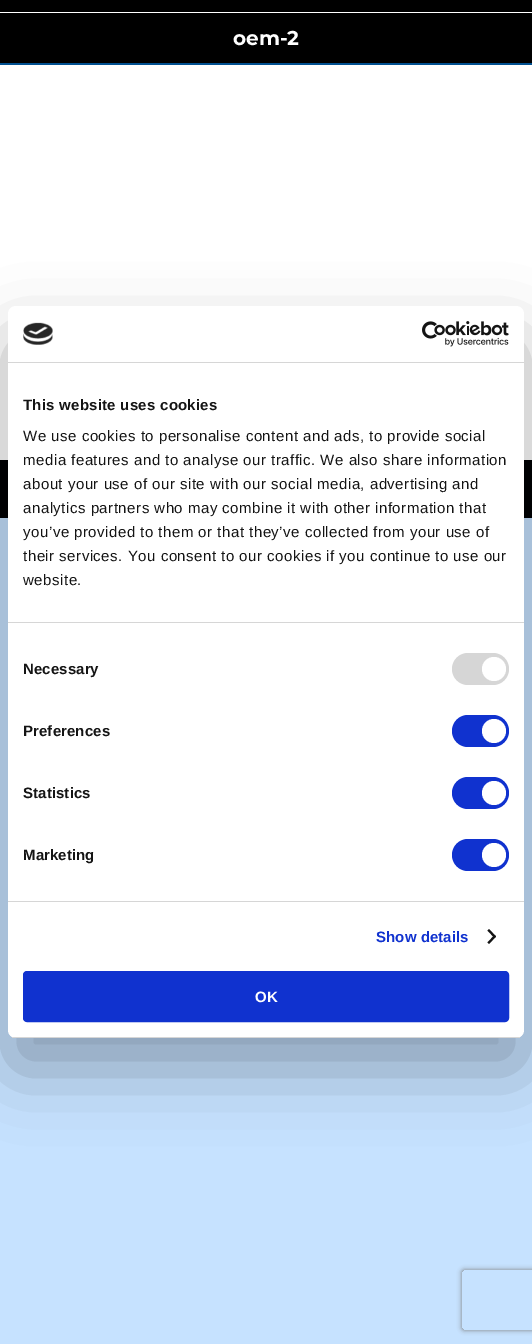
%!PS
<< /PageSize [532 1344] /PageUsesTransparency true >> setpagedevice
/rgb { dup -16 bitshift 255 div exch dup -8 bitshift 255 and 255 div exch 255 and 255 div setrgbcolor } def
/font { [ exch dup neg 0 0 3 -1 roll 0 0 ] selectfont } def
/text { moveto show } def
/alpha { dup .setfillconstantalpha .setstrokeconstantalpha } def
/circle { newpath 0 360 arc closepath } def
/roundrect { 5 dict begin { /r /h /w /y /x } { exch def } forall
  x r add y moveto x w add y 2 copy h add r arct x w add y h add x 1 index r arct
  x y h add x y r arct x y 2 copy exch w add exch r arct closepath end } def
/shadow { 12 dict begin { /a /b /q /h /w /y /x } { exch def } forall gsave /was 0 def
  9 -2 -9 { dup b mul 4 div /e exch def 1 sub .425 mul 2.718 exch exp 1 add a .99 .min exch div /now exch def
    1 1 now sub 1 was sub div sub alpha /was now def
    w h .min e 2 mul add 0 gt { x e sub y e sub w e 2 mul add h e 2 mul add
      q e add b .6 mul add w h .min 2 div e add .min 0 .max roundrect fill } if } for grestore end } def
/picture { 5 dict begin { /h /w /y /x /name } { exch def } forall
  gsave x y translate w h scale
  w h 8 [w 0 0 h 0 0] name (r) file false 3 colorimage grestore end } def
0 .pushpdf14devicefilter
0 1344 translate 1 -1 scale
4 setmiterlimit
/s1 { /Montserrat-Bold 20 font 16#FFFFFF rgb } def
/s2 { /LiberationSans-Bold 15 font 16#FFFFFF rgb } def
16#C6E2FF rgb
0 0 532 1344 rectfill
16#FFFFFF rgb
0 65 532 395 rectfill
0 12 532 1 rectfill
16#000000 rgb
0 0 532 12 rectfill
0 13 532 50 rectfill
16#015090 rgb
0 63 532 2 rectfill
s1
(oem-2) 233 45 text
16#000103 rgb
0 460 532 58 rectfill
16#000000 rgb
8 338 516 732 8 34 0.3 shadow
16#FFFFFF rgb
8 306 516 732 8 roundrect fill
16#D6D6D6 rgb
8 362 516 1 rectfill
(pic1.raw) 23 322 30 23 picture
(pic2.raw) 422 321 87 26 picture
8 622 516 1 rectfill
/LiberationSans-Bold 15 font
16#141414 rgb
23 410 moveto 0.25 0 (This website uses cookies) ashow
/LiberationSans-Regular 15 font
23 441 moveto 0.5 0 (We use cookies to personalise content and ads, to provide social) ashow
23 465 moveto 0.5 0 (media features and to analyse our traffic. We also share information) ashow
23 489 moveto 0.5 0 (about your use of our site with our social media, advertising and) ashow
23 513 moveto 0.5 0 (analytics partners who may combine it with other information that) ashow
23 537 moveto 0.5 0 (you’ve provided to them or that they’ve collected from your use of) ashow
23 561 moveto 0.5 0 (their services. You consent to our cookies if you continue to use our) ashow
23 585 moveto 0.5 0 (website.) ashow
16#D6D6D6 rgb
8 901 516 1 rectfill
/LiberationSans-Bold 15 font
16#141414 rgb
23 674 moveto 0.1 0 (Necessary) ashow
16#D6D6D6 rgb
452 653 57 32 16 roundrect fill
16#FFFFFF rgb
494 669 12 circle fill
16#141414 rgb
23 736 moveto 0.1 0 (Preferences) ashow
16#1032CF rgb
452 715 57 32 16 roundrect fill
16#FFFFFF rgb
494 731 12 circle fill
16#141414 rgb
23 798 moveto 0.1 0 (Statistics) ashow
16#1032CF rgb
452 777 57 32 16 roundrect fill
16#FFFFFF rgb
494 793 12 circle fill
16#141414 rgb
23 860 moveto 0.1 0 (Marketing) ashow
16#1032CF rgb
452 839 57 32 16 roundrect fill
16#FFFFFF rgb
494 855 12 circle fill
16#1032CF rgb
376 942 moveto 0.1 0 (Show details) ashow
16#141414 rgb
489 929 moveto 496 936.5 lineto 494.5 938 lineto 487.5 930.5 lineto closepath fill
494.5 935 moveto 496 936.5 lineto 489 944 lineto 487.5 942.5 lineto closepath fill
gsave
8 306 516 732 8 roundrect clip newpath
16#D6D6D6 rgb
8 1037 516 1 rectfill
grestore
16#1032CF rgb
24 972 484 49 3 roundrect gsave fill grestore
2 setlinewidth
stroke
s2
(OK) 255 1002 text
gsave
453 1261 moveto 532 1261 lineto 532 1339 lineto 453 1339 lineto closepath 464 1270 moveto 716 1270 lineto 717 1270 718 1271 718 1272 curveto 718 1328 lineto 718 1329 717 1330 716 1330 curveto 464 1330 lineto 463 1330 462 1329 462 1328 curveto 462 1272 lineto 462 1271 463 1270 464 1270 curveto closepath eoclip newpath
16#808080 rgb
462 1270 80 60 2 2.5 1 shadow
grestore
.poppdf14devicefilter showpage
